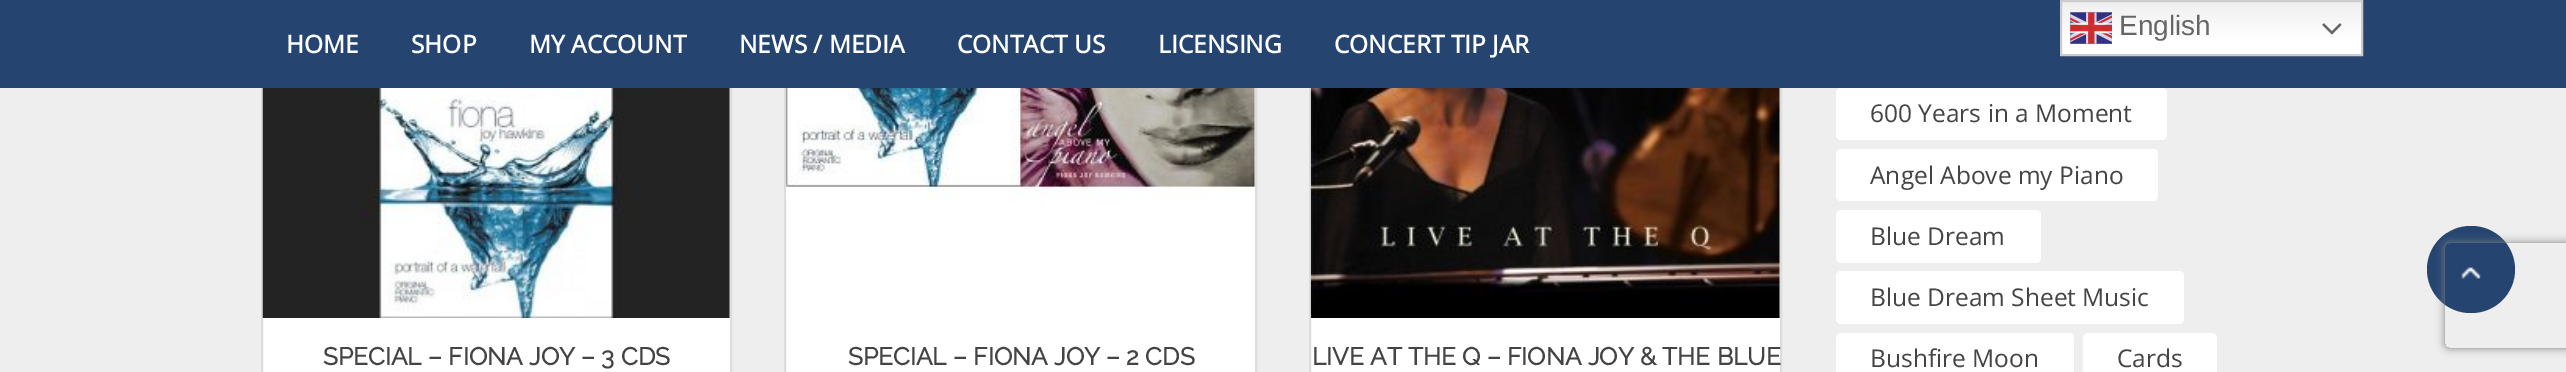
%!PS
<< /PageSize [2566 372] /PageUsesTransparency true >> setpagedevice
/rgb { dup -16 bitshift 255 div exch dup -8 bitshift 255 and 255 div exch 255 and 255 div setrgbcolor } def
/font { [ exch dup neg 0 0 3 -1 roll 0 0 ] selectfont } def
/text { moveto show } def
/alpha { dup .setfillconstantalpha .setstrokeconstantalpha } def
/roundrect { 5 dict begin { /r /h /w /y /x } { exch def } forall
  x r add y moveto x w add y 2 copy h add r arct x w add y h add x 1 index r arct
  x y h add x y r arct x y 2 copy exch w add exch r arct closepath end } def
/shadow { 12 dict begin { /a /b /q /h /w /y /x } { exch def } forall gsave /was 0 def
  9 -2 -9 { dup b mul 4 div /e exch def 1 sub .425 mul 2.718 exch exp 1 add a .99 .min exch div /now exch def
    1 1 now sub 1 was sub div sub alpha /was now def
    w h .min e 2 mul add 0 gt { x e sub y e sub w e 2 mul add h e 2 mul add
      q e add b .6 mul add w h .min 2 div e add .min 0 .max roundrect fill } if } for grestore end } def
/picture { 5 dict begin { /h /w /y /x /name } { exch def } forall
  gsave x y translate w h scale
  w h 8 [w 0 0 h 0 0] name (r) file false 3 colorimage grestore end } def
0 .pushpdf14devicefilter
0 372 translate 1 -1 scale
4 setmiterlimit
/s1 { /LiberationSans-Regular 28 font 16#666666 rgb } def
/s2 { /OpenSans-Bold 24.5 font 16#FFFFFF rgb } def
/s3 { /Raleway-Bold 24.5 font 16#444444 rgb } def
/s4 { /OpenSans-Regular 24.5 font 16#444444 rgb } def
16#EEEEEE rgb
0 0 2566 372 rectfill
16#FFFFFF rgb
263 88 467 284 rectfill
16#DDDDDD rgb
2 setlinewidth
262 -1 469 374 rectstroke
16#FFFFFF rgb
786 88 469 284 rectfill
16#DDDDDD rgb
785 -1 471 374 rectstroke
16#FFFFFF rgb
1311 88 469 284 rectfill
16#DDDDDD rgb
1310 -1 471 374 rectstroke
16#254470 rgb
0 0 2566 88 rectfill
gsave 2062 2 moveto 2361 2 lineto 2361 54 lineto 2062 54 lineto closepath clip newpath
<< /ShadingType 2 /ColorSpace /DeviceRGB /Coords [2211 0 2211 56] /Extend [true true] /Function << /FunctionType 3 /Domain [0 1] /Functions [<< /FunctionType 2 /Domain [0 1] /C0 [0.937 0.937 0.937] /C1 [1 1 1] /N 1 >> << /FunctionType 2 /Domain [0 1] /C0 [1 1 1] /C1 [1 1 1] /N 1 >>] /Bounds [0.7] /Encode [0 1 0 1] >> >> shfill grestore
16#CCCCCC rgb
2061 1 301 54 rectstroke
(pic1.raw) 2070 12 42 32 picture
s1
(English) 2119 35 text
(pic2.raw) 2322 23 20 12 picture
s2
(HOME) 286 53 text
(SHOP) 411 53 text
(MY ACCOUNT) 529 53 text
(NEWS / MEDIA) 739 53 text
(CONTACT US) 957 53 text
(LICENSING) 1158 53 text
(CONCERT TIP JAR) 1334 53 text
(pic3.raw) 262 88 468 230 picture
s3
(SPECIAL – FIONA JOY – 3 CDS) 323 365 text
(pic4.raw) 785 88 470 112 picture
(SPECIAL – FIONA JOY – 2 CDS) 848 365 text
(pic5.raw) 1310 88 470 230 picture
(LIVE AT THE Q – FIONA JOY & THE BLUE) 1312 365 text
16#FFFFFF rgb
1836 88 331 52 5 roundrect fill
s4
(600 Years in a Moment) 1870 122 text
16#FFFFFF rgb
1836 149 322 52 5 roundrect fill
s4
(Angel Above my Piano) 1870 184 text
16#FFFFFF rgb
1836 210 205 53 5 roundrect fill
s4
(Blue Dream) 1870 245 text
16#FFFFFF rgb
1836 271 348 53 5 roundrect fill
s4
(Blue Dream Sheet Music) 1870 306 text
16#FFFFFF rgb
1836 333 238 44 5 roundrect fill
s4
(Bushfire Moon) 1870 367 text
16#FFFFFF rgb
2083 333 134 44 5 roundrect fill
s4
(Cards) 2117 367 text
16#254470 rgb
2427 226 88 87 43.5 roundrect fill
(pic6.raw) 2447 229 34 50 picture
gsave
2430 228 moveto 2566 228 lineto 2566 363 lineto 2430 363 lineto closepath 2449 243 moveto 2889 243 lineto 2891 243 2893 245 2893 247 curveto 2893 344 lineto 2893 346 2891 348 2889 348 curveto 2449 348 lineto 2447 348 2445 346 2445 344 curveto 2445 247 lineto 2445 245 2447 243 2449 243 curveto closepath eoclip newpath
16#808080 rgb
2445 243 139 105 4 4.5 1 shadow
grestore
.poppdf14devicefilter showpage
